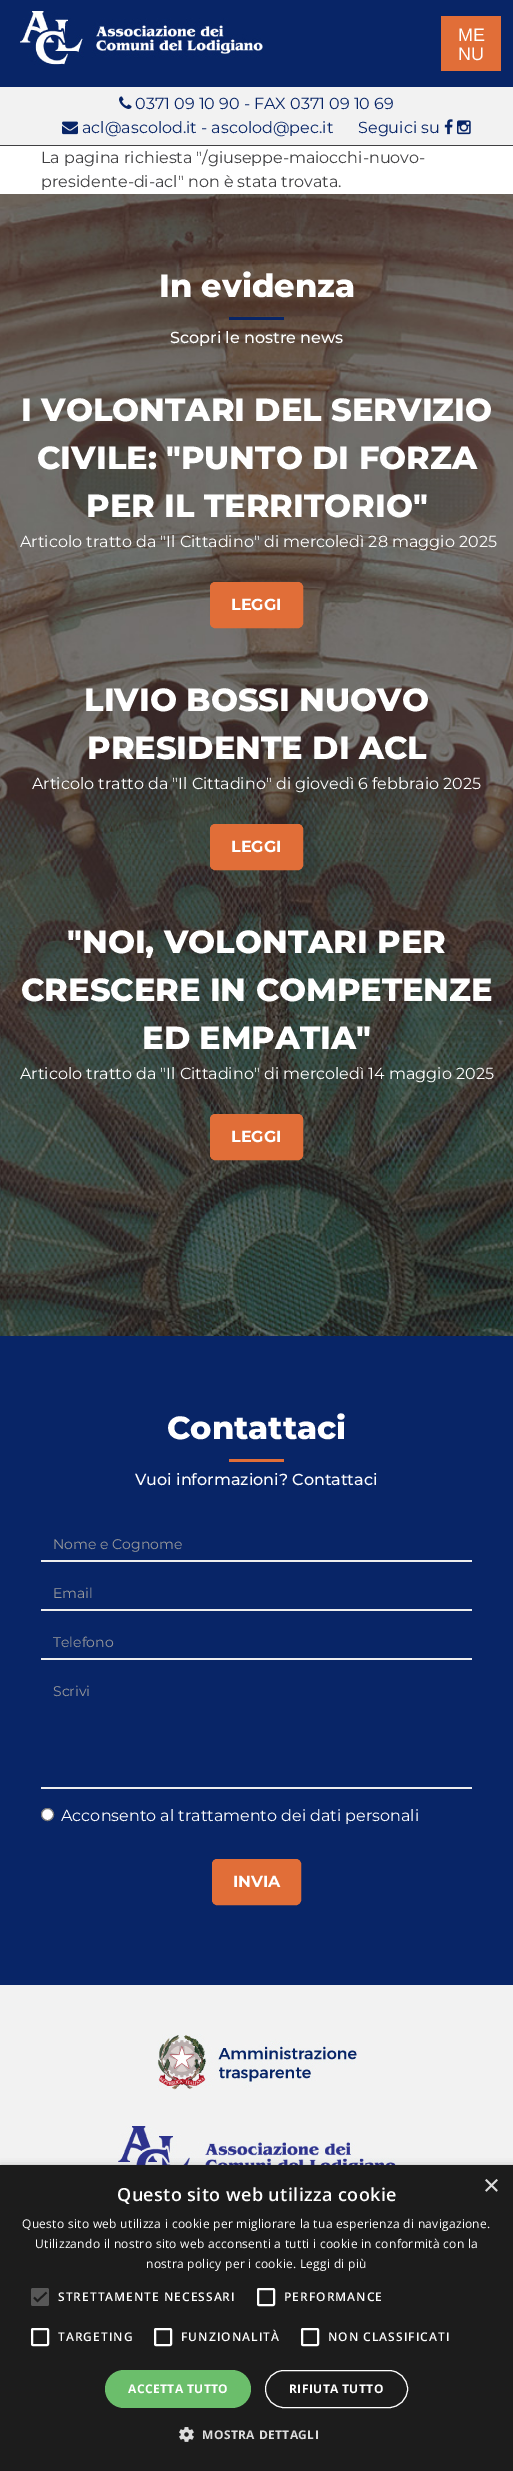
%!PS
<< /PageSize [513 2471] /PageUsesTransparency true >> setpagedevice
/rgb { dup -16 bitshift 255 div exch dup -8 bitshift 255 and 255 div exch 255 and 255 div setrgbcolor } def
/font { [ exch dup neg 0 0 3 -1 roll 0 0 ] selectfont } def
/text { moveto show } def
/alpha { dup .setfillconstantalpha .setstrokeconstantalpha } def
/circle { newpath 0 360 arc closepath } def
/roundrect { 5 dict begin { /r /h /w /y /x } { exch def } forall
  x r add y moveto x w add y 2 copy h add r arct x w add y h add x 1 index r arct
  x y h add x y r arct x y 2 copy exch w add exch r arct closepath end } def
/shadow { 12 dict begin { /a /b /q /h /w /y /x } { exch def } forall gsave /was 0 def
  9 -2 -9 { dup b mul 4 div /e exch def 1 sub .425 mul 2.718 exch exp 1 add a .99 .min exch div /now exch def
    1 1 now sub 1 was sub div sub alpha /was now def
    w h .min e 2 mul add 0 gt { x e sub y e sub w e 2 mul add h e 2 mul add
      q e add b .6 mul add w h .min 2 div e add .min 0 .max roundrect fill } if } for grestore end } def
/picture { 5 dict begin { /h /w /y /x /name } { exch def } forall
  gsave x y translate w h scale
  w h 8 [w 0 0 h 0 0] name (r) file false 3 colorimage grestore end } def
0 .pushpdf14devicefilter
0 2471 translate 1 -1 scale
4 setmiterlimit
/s1 { /LiberationSans-Regular 18 font 16#FFFFFF rgb } def
/s2 { /Montserrat-Regular 16 font 16#082567 rgb } def
/s3 { /Montserrat-Regular 16 font 16#404042 rgb } def
/s4 { /Montserrat-ExtraBold 32 font 16#FFFFFF rgb } def
/s5 { /Montserrat-Medium 16 font 16#FFFFFF rgb } def
/s6 { /Montserrat-Regular 16 font 16#FFFFFF rgb } def
/s7 { /Montserrat-Bold 16 font 16#FFFFFF rgb } def
/s8 { /Montserrat-Regular 14 font 16#999999 rgb } def
/s9 { /LiberationSans-Regular 29 font 16#DDDDDD rgb } def
16#FFFFFF rgb
0 0 513 2471 rectfill
16#082567 rgb
0 0 513 87 rectfill
16#E16E38 rgb
441 16 60 55 rectfill
s1
(ME) 458 41 text
(NU) 458 60 text
16#F2F2F2 rgb
0 87 513 58 rectfill
(pic1.raw) 20 11 243 54 picture
16#404042 rgb
0 145 513 1 rectfill
(pic2.raw) 119 96 13 13 picture
s2
(0371 09 10 90 - FAX 0371 09 10 69) 135 109 text
(pic3.raw) 62 121 16 14 picture
(acl@ascolod.it - ascolod@pec.it) 82 133 text
(Seguici su) 358 133 text
(pic4.raw) 444 119 9 16 picture
(pic5.raw) 457 120 14 15 picture
s3
(La pagina richiesta "/giuseppe-maiocchi-nuovo-) 41 163 text
(presidente-di-acl" non è stata trovata.) 41 187 text
(pic6.raw) 0 194 513 1142 picture
s4
(In evidenza) 159 297 text
16#082567 rgb
229 317 55 3 rectfill
s5
(Scopri le nostre news) 170 343 text
s4
(I VOLONTARI DEL SERVIZIO) 21 421 text
(CIVILE: "PUNTO DI FORZA) 37 469 text
(PER IL TERRITORIO") 86 517 text
s6
(Articolo tratto da "Il Cittadino" di mercoledì 28 maggio 2025) 20 547 text
16#E16E38 rgb
210.5 582.5 92 45 4.5 roundrect gsave fill grestore
stroke
s7
(LEGGI) 231 610 text
s4
(LIVIO BOSSI NUOVO) 84 711 text
(PRESIDENTE DI ACL) 87 759 text
s6
(Articolo tratto da "Il Cittadino" di giovedì 6 febbraio 2025) 32 789 text
16#E16E38 rgb
210.5 824.5 92 45 4.5 roundrect gsave fill grestore
stroke
s7
(LEGGI) 231 852 text
s4
("NOI, VOLONTARI PER) 67 953 text
(CRESCERE IN COMPETENZE) 21 1001 text
(ED EMPATIA") 142 1049 text
s6
(Articolo tratto da "Il Cittadino" di mercoledì 14 maggio 2025) 20 1079 text
16#E16E38 rgb
210.5 1114.5 92 45 4.5 roundrect gsave fill grestore
stroke
s7
(LEGGI) 231 1142 text
16#082567 rgb
0 1336 513 649 rectfill
s4
(Contattaci) 167 1439 text
16#E16E38 rgb
229 1459 55 3 rectfill
s5
(Vuoi informazioni? Contattaci) 135 1485 text
16#EEEEEE rgb
41 1560 431 2 rectfill
s8
(Nome e Cognome) 53 1549 text
16#EEEEEE rgb
41 1609 431 2 rectfill
s8
(Email) 53 1598 text
16#EEEEEE rgb
41 1658 431 2 rectfill
s8
(Telefono) 53 1647 text
16#EEEEEE rgb
41 1787 431 2 rectfill
s8
(Scrivi) 53 1696 text
16#FFFFFF rgb
47.5 1814.5 6 circle gsave fill grestore
16#767676 rgb
stroke
s6
(Acconsento al trattamento dei dati personali) 61 1821 text
16#E16E38 rgb
212.5 1859.5 88 45 4.5 roundrect gsave fill grestore
stroke
s7
(INVIA) 233 1887 text
16#F2F2F2 rgb
0 1985 513 180 rectfill
(pic7.raw) 157 2034 200 56 picture
(pic8.raw) 118 2126 278 39 picture
16#000000 rgb
1 2167 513 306 0 4 0.35 shadow
16#1C1C1C rgb
0 2165 513 306 rectfill
s9
(×) 483 2195 text
/OpenSans-SemiBold 18 font
16#FFFFFF rgb
117 2201 moveto 0.4 0 (Questo sito web utilizza cookie) ashow
/OpenSans-Regular 12 font
22 2228 moveto 0.3 0 (Questo sito web utilizza i cookie per migliorare la tua esperienza di navigazione.) ashow
35 2248 moveto 0.3 0 (Utilizzando il nostro sito web acconsenti a tutti i cookie in conformità con la) ashow
146 2268 moveto 0.3 0 (nostra policy per i cookie. Leggi di più) ashow
16#575757 rgb
31 2288 18 18 2 roundrect fill
16#1C1C1C rgb
1.8 setlinewidth
34 2297.5 moveto 37.5 2301 lineto 46.5 2292.5 lineto stroke
/OpenSans-SemiBold 12 font
16#FFFFFF rgb
58 2301 moveto 1 0 (STRETTAMENTE NECESSARI) ashow
2 setlinewidth
258 2289 16 16 1 roundrect stroke
284 2301 moveto 1 0 (PERFORMANCE) ashow
32 2329 16 16 1 roundrect stroke
58 2341 moveto 1 0 (TARGETING) ashow
155 2329 16 16 1 roundrect stroke
181 2341 moveto 1 0 (FUNZIONALITÀ) ashow
302 2329 16 16 1 roundrect stroke
328 2341 moveto 1 0 (NON CLASSIFICATI) ashow
16#6BBE6B rgb
105 2370 146 38 19 roundrect fill
/OpenSans-Bold 12 font
16#FFFFFF rgb
128 2393 moveto 0.4 0 (ACCETTA TUTTO) ashow
1 setlinewidth
265.5 2370.5 142 37 18.5 roundrect stroke
289 2393 moveto 0.4 0 (RIFIUTA TUTTO) ashow
(pic9.raw) 179 2427 15 15 picture
16#DDDDDD rgb
202 2439 moveto 0.4 0 (MOSTRA DETTAGLI) ashow
.poppdf14devicefilter showpage
